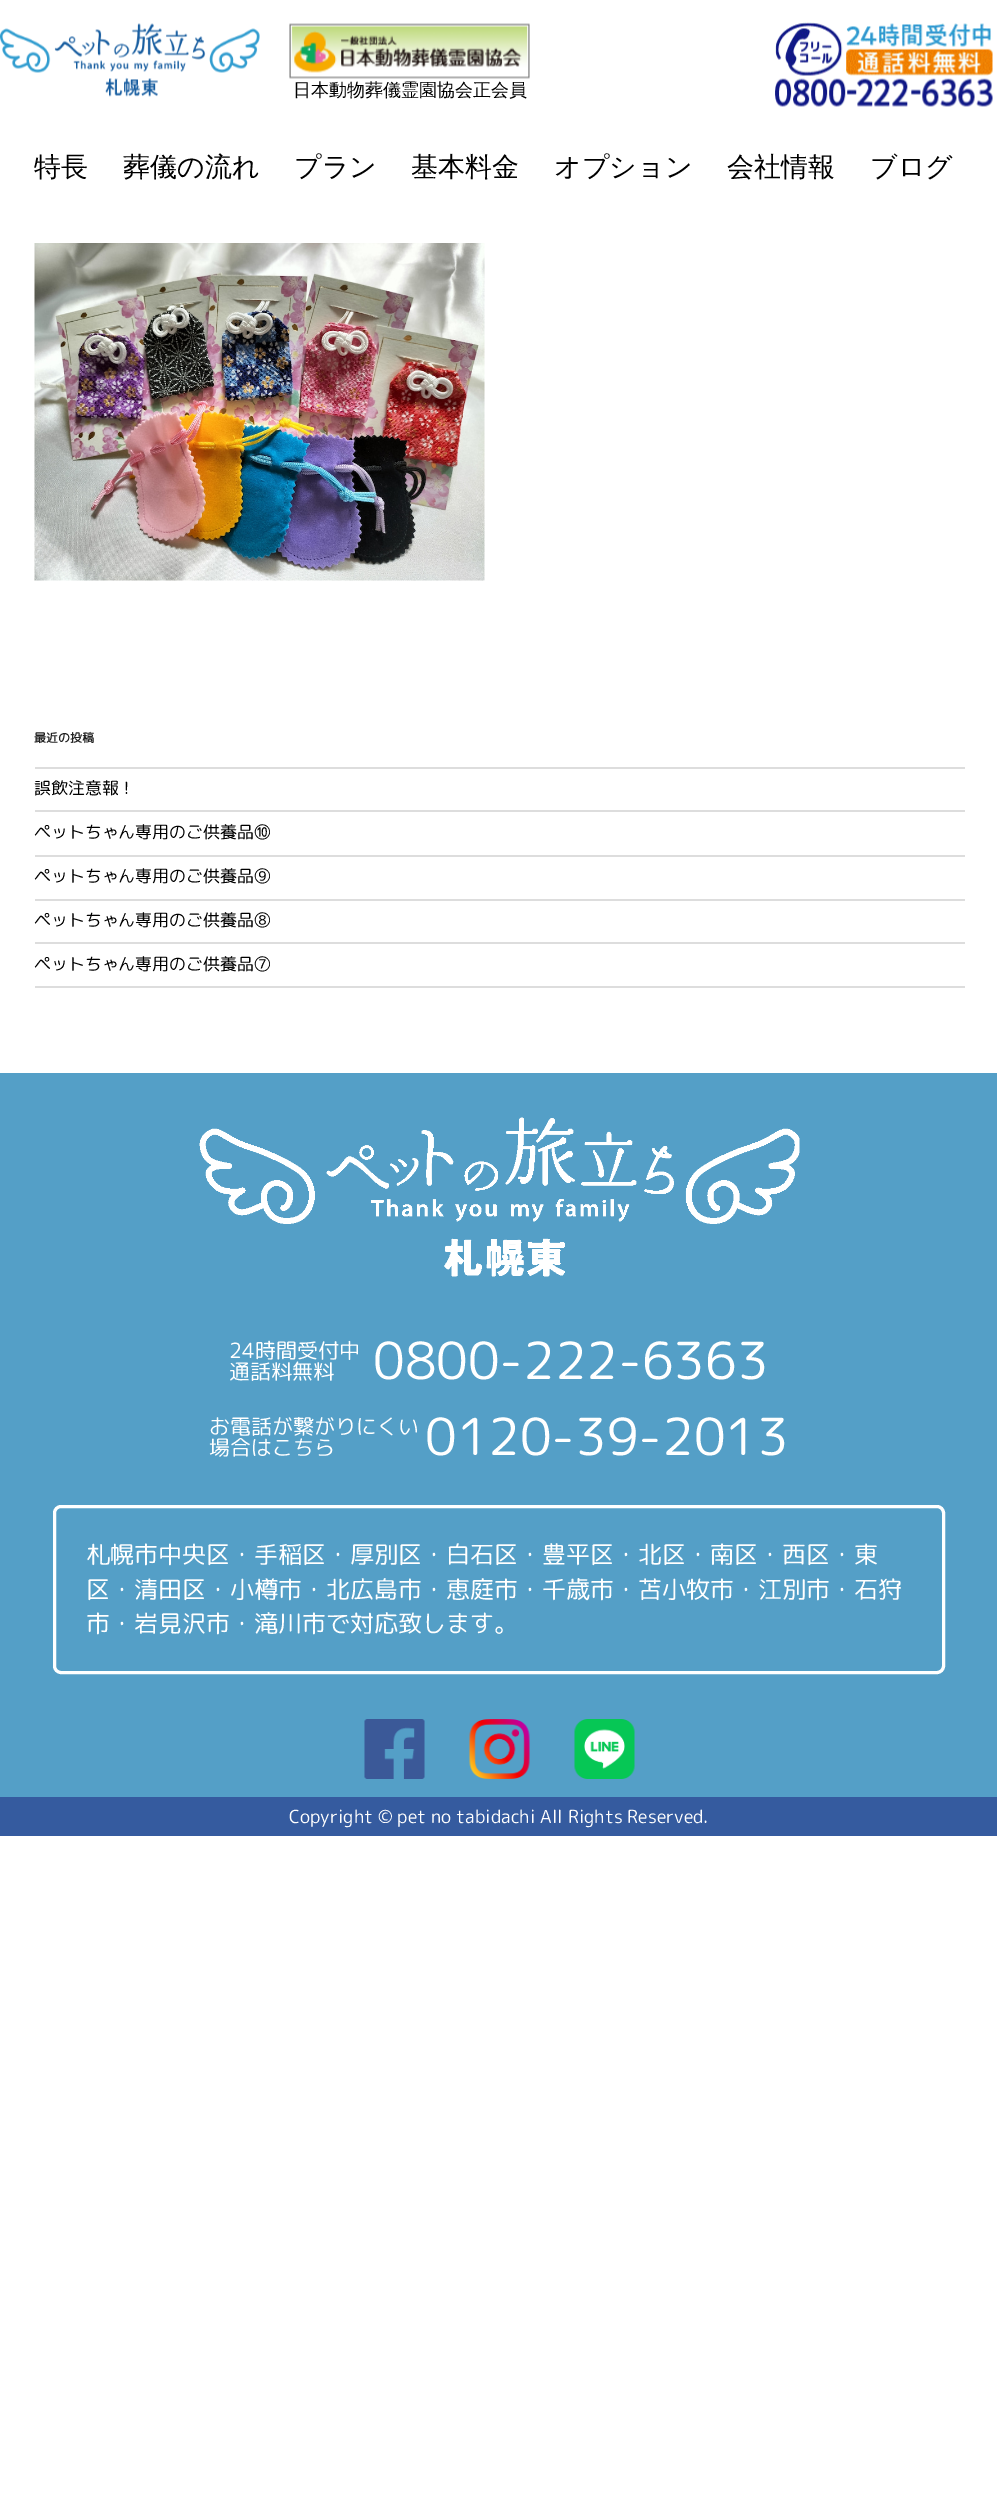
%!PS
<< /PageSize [997 2519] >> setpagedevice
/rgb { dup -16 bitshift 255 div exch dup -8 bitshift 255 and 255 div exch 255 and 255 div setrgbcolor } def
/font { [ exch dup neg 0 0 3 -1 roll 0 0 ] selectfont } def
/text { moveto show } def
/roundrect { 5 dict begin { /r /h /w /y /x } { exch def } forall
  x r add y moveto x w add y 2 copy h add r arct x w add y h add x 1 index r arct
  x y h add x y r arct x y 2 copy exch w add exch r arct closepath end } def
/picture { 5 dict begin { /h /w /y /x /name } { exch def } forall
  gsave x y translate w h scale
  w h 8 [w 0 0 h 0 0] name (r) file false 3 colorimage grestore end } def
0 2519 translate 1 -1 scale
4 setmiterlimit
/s1 { /WenQuanYiZenHei-Medium 18 font 16#000000 rgb } def
/s2 { /WenQuanYiZenHei-Medium 27 font 16#000000 rgb } def
/s3 { /RoundedMplus1c-Bold 12 font 16#222222 rgb } def
/s4 { /RoundedMplus1c-Regular 16.9 font 16#000000 rgb } def
/s5 { /RoundedMplus1c-Regular 21 font 16#FFFFFF rgb } def
/s6 { /RoundedMplus1c-Regular 51 font 16#FFFFFF rgb } def
/s7 { /RoundedMplus1c-Regular 24 font 16#FFFFFF rgb } def
/s8 { /RoundedMplus1c-Regular 18 font 16#FFFFFF rgb } def
16#FFFFFF rgb
0 0 997 2519 rectfill
(pic1.raw) 0 23 260 74 picture
(pic2.raw) 289 23 241 56 picture
s1
(日本動物葬儀霊園協会正会員) 293 96 text
(pic3.raw) 775 22 218 85 picture
s2
(特長) 34 176 text
(葬儀の流れ) 123 176 text
(プラン) 294 176 text
(基本料金) 411 176 text
(オプション) 554 176 text
(会社情報) 727 176 text
(ブログ) 870 176 text
(pic4.raw) 34 243 451 338 picture
s3
(最近の投稿) 34 742 text
16#DDDDDD rgb
35 767 930 2 rectfill
35 810 930 2 rectfill
s4
(誤飲注意報！) 34 794 text
16#DDDDDD rgb
35 855 930 2 rectfill
s4
(ペットちゃん専用のご供養品⑩) 34 838 text
16#DDDDDD rgb
35 899 930 2 rectfill
s4
(ペットちゃん専用のご供養品⑨) 34 882 text
16#DDDDDD rgb
35 942 930 2 rectfill
s4
(ペットちゃん専用のご供養品⑧) 34 926 text
16#DDDDDD rgb
35 986 930 2 rectfill
s4
(ペットちゃん専用のご供養品⑦) 34 970 text
16#549FC7 rgb
0 1073 997 724 rectfill
(pic5.raw) 199 1117 601 160 picture
s5
(24時間受付中) 229 1358 text
(通話料無料) 229 1379 text
s6
(0800-222-6363) 373 1379 text
s5
(お電話が繋がりにくい) 209 1434 text
(場合はこちら) 209 1455 text
s6
(0120-39-2013) 425 1455 text
3 setlinewidth
54.5 1506.5 889 166 6.5 roundrect stroke
s7
(札幌市中央区・手稲区・厚別区・白石区・豊平区・北区・南区・西区・東) 86 1563 text
(区・清田区・小樽市・北広島市・恵庭市・千歳市・苫小牧市・江別市・石狩) 86 1598 text
(市・岩見沢市・滝川市で対応致します。) 86 1632 text
(pic6.raw) 364 1719 61 60 picture
(pic7.raw) 469 1719 61 60 picture
(pic8.raw) 574 1719 61 60 picture
16#355B9F rgb
0 1797 997 39 rectfill
s8
(Copyright © pet no tabidachi All Rights Reserved.) 289 1823 text
showpage
